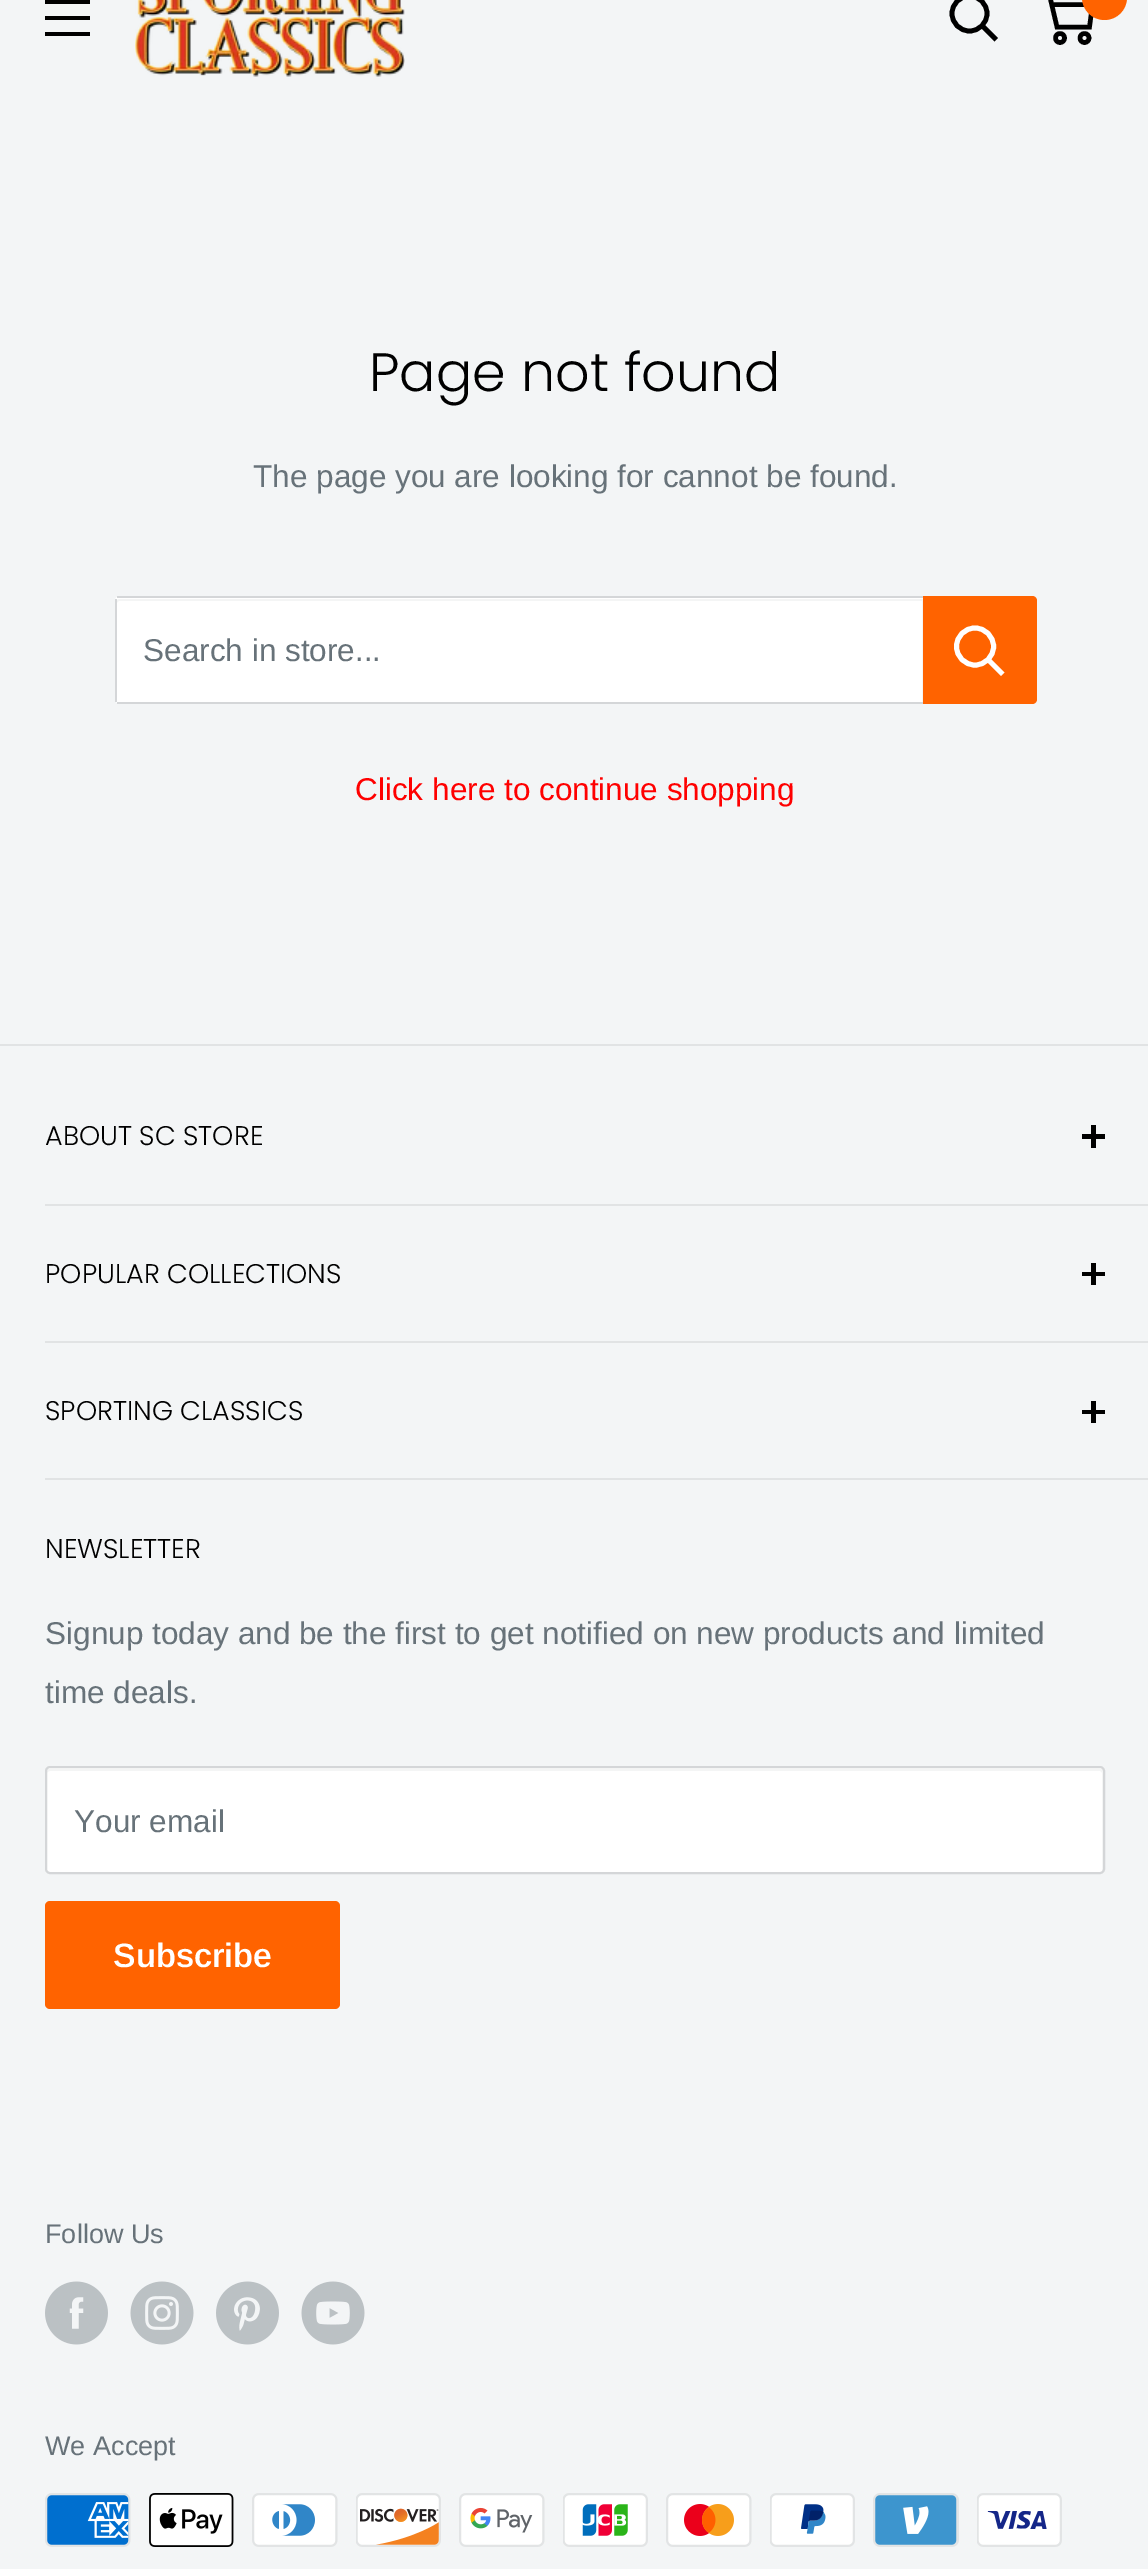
%!PS
<< /PageSize [1148 2569] >> setpagedevice
/rgb { dup -16 bitshift 255 div exch dup -8 bitshift 255 and 255 div exch 255 and 255 div setrgbcolor } def
/font { [ exch dup neg 0 0 3 -1 roll 0 0 ] selectfont } def
/text { moveto show } def
/circle { newpath 0 360 arc closepath } def
/roundrect { 5 dict begin { /r /h /w /y /x } { exch def } forall
  x r add y moveto x w add y 2 copy h add r arct x w add y h add x 1 index r arct
  x y h add x y r arct x y 2 copy exch w add exch r arct closepath end } def
/picture { 5 dict begin { /h /w /y /x /name } { exch def } forall
  gsave x y translate w h scale
  w h 8 [w 0 0 h 0 0] name (r) file false 3 colorimage grestore end } def
0 2569 translate 1 -1 scale
4 setmiterlimit
/s1 { /Poppins-Light 54 font 16#000000 rgb } def
/s2 { /Arimo-Regular 31.5 font 16#677279 rgb } def
/s3 { /Arimo-Regular 31.5 font 16#FF0000 rgb } def
/s4 { /Poppins-Light 27 font 16#000000 rgb } def
/s5 { /Arimo-SemiBold 33.75 font 16#FFFFFF rgb } def
/s6 { /Arimo-Regular 27 font 16#677279 rgb } def
16#F3F5F6 rgb
0 0 1148 2569 rectfill
16#000000 rgb
45 32 moveto 90 32 lineto 90 36 lineto 45 36 lineto closepath 45 0 moveto 90 0 lineto 90 4 lineto 45 4 lineto closepath 45 16 moveto 90 16 lineto 90 20 lineto 45 20 lineto closepath eofill
(pic1.raw) 135 0 270 77 picture
4.7 setlinewidth
2 setlinecap
994.5 38 moveto 982.5 26 lineto stroke
0 setlinecap
969.5 13.5 17.5 circle stroke
4.5 setlinewidth
1060 38 4.5 circle stroke
1084.5 38 4.5 circle stroke
1051.5 4.5 moveto 1092.5 4.5 lineto 1089.5 27 lineto 1057 27 lineto 1049 -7 lineto 1035 -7 lineto stroke
16#FF6300 rgb
1082 -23 45 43 22.5 roundrect fill
s1
(Page not found) 369 391 text
s2
(The page you are looking for cannot be found.) 253 487 text
16#FFFFFF rgb
120 596 moveto 923 596 lineto 923 704 lineto 120 704 lineto 117 704 115 702 115 699 curveto 115 601 lineto 115 598 117 596 120 596 curveto closepath fill
16#F4F5F5 rgb
119 601 moveto 922 601 lineto 922 702 lineto 923 702 lineto 923 599 lineto 119 599 lineto 117 600 lineto 117 603 lineto 117 602 118 601 119 601 curveto closepath fill
16#D4D6D8 rgb
117 596 806 2 rectfill
117 702 806 2 rectfill
115 599 2 103 rectfill
s2
(Search in store...) 143 661 text
16#FF6300 rgb
923 596 moveto 1032 596 lineto 1035 596 1037 598 1037 601 curveto 1037 699 lineto 1037 702 1035 704 1032 704 curveto 923 704 lineto closepath fill
16#FFFFFF rgb
4.9 setlinewidth
2 setlinecap
1001 672.5 moveto 988.5 660 lineto stroke
0 setlinecap
975 646.5 18.5 circle stroke
s3
(Click here to continue shopping) 355 800 text
16#E1E3E4 rgb
0 1044 1148 2 rectfill
45 1204 1103 2 rectfill
s4
(ABOUT SC STORE) 45 1145 text
1091 1125 5 23 rectfill
1082 1134 23 5 rectfill
16#E1E3E4 rgb
45 1341 1103 2 rectfill
s4
(POPULAR COLLECTIONS) 45 1283 text
1091 1263 5 22 rectfill
1082 1272 23 4 rectfill
16#E1E3E4 rgb
45 1478 1103 2 rectfill
s4
(SPORTING CLASSICS) 45 1420 text
1091 1401 5 22 rectfill
1082 1410 23 4 rectfill
(NEWSLETTER) 45 1558 text
s2
(Signup today and be the first to get notified on new products and limited) 45 1644 text
(time deals.) 45 1703 text
16#FFFFFF rgb
45 1766 1060 108 5 roundrect fill
16#F4F5F5 rgb
50 1771 moveto 1100 1771 lineto 1101 1771 1102 1772 1102 1773 curveto 1102 1872 lineto 1103 1871 1103 1871 1103 1870 curveto 1103 1771 lineto 1103 1770 1102 1769 1101 1769 curveto 49 1769 lineto 48 1769 47 1770 47 1771 curveto 47 1773 lineto 47 1772 48 1771 50 1771 curveto closepath fill
16#D4D6D8 rgb
2 setlinewidth
46 1767 1058 106 4 roundrect stroke
s2
(Your email) 74 1832 text
16#FF6300 rgb
45 1901 295 108 5 roundrect fill
s5
(Subscribe) 113 1967 text
s6
(Follow Us) 45 2243 text
(pic2.raw) 45 2281 63 64 picture
(pic3.raw) 130 2281 64 64 picture
(pic4.raw) 216 2281 63 64 picture
(pic5.raw) 301 2281 64 64 picture
(We Accept) 45 2455 text
(pic6.raw) 45 2493 86 54 picture
(pic7.raw) 149 2493 85 54 picture
(pic8.raw) 252 2493 86 54 picture
(pic9.raw) 356 2493 85 54 picture
(pic10.raw) 459 2493 86 54 picture
(pic11.raw) 563 2493 85 54 picture
(pic12.raw) 666 2493 86 54 picture
(pic13.raw) 770 2493 85 54 picture
(pic14.raw) 873 2493 86 54 picture
(pic15.raw) 977 2493 85 54 picture
showpage
